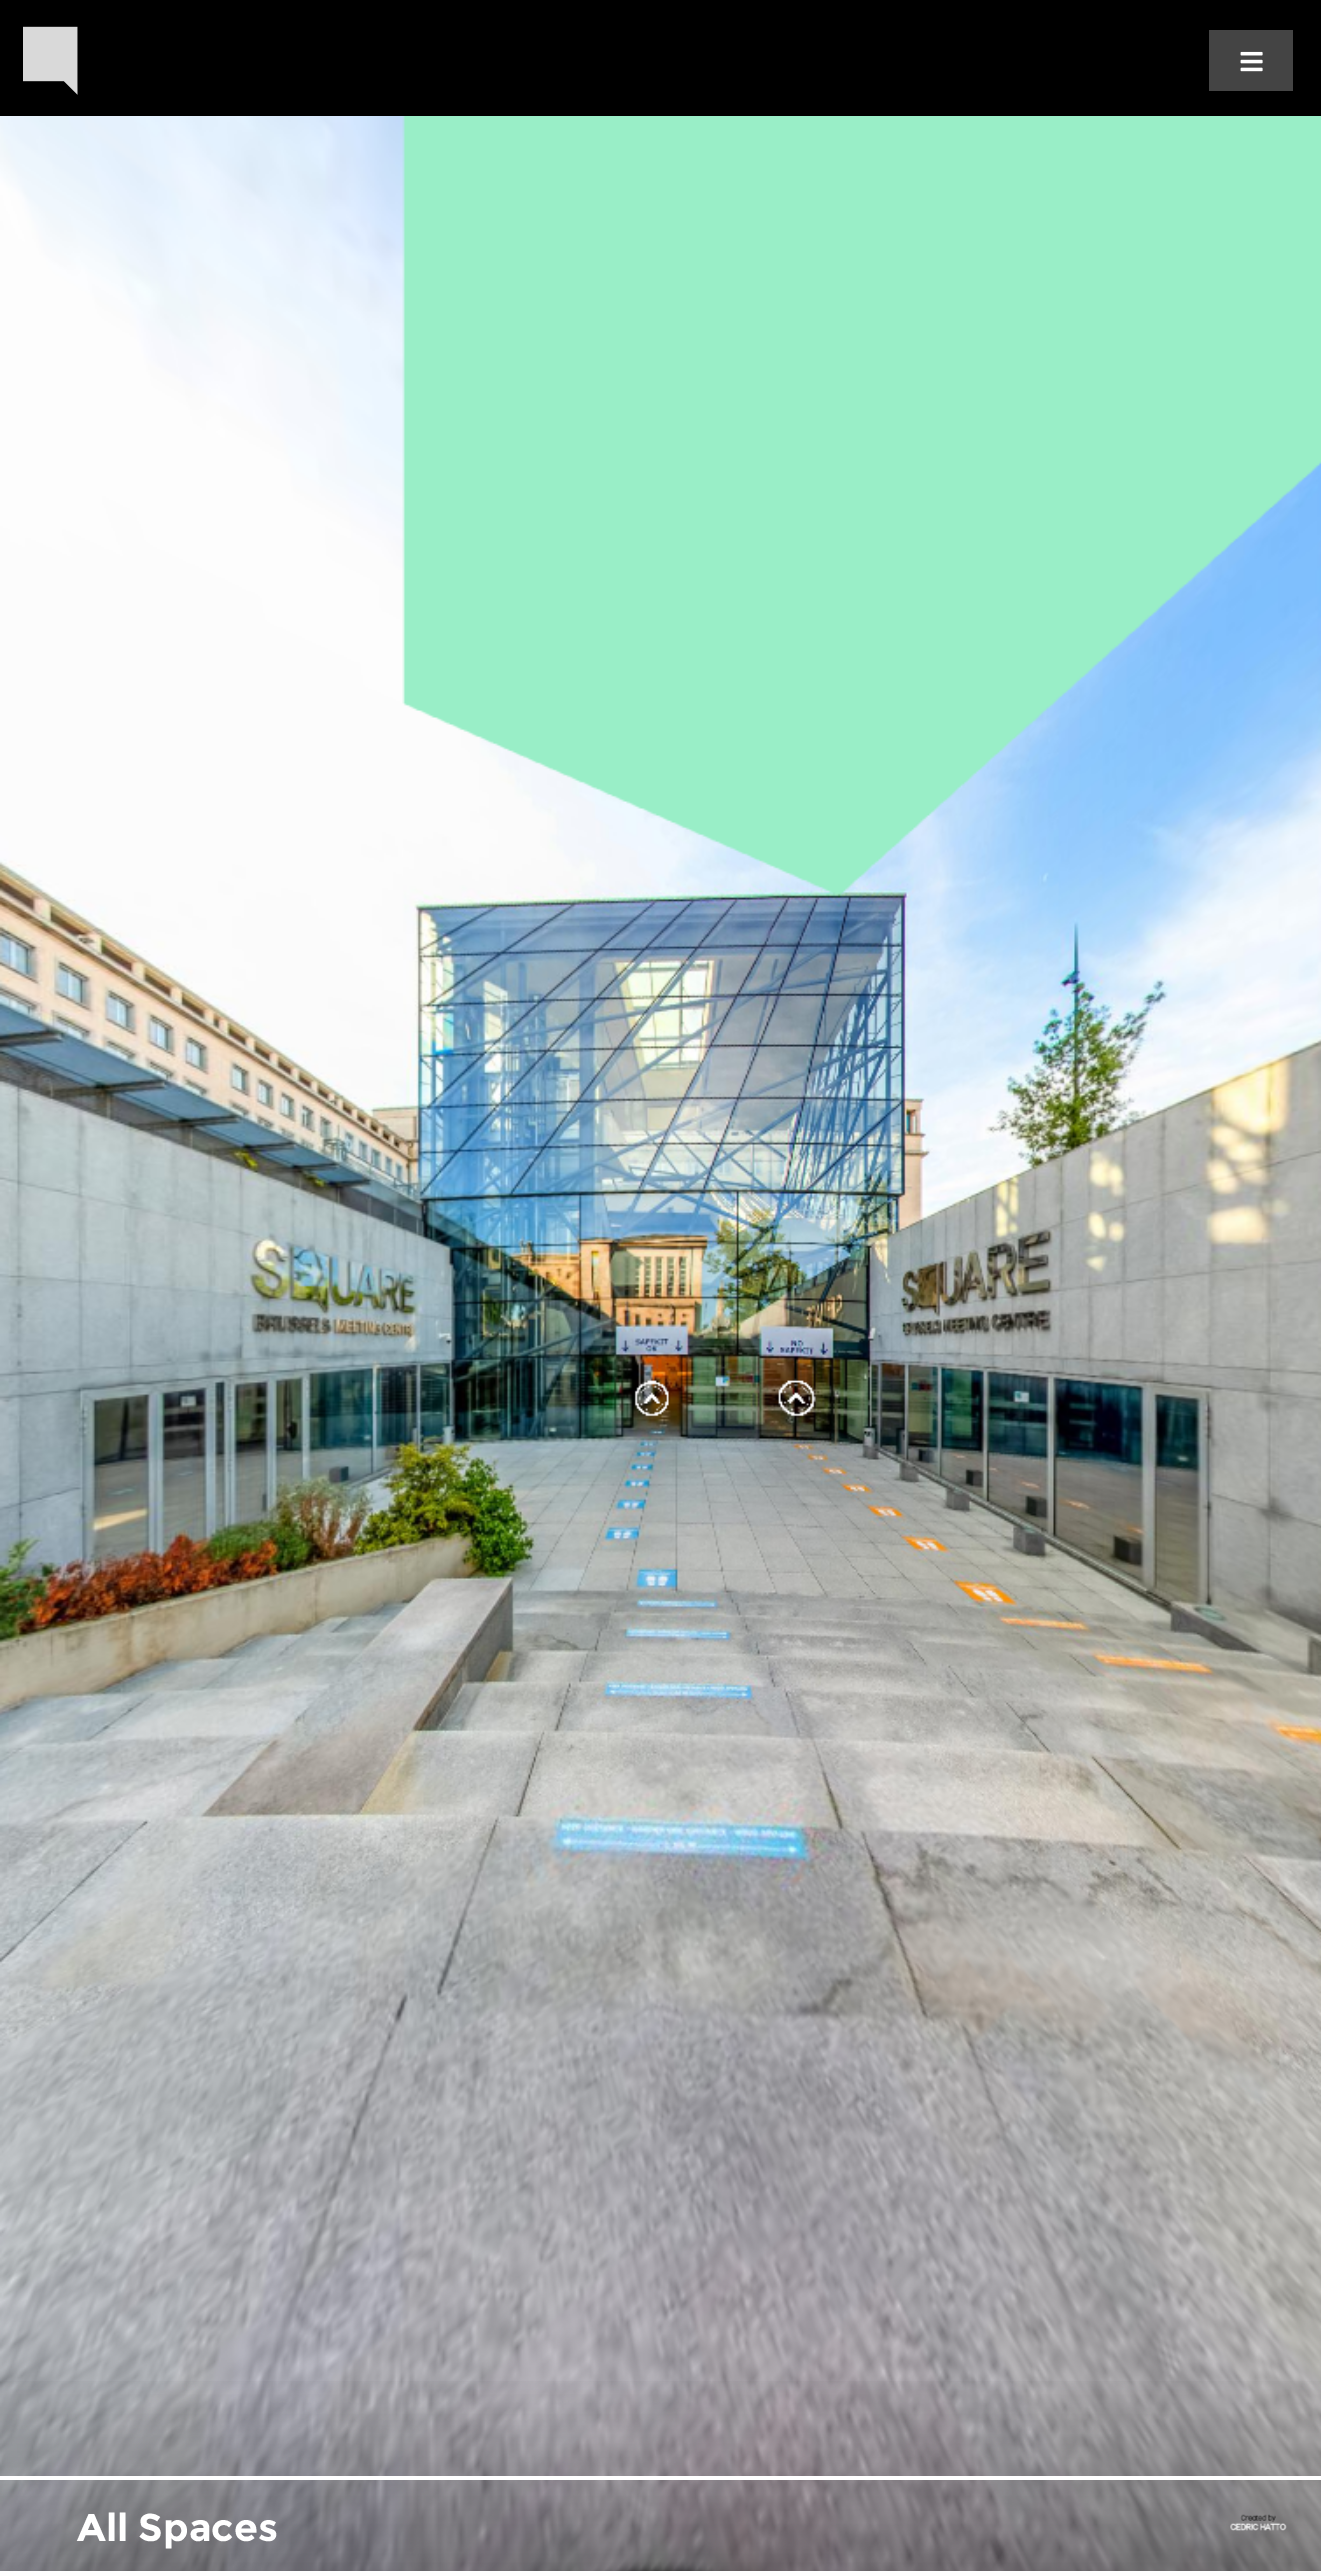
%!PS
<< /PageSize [1321 2571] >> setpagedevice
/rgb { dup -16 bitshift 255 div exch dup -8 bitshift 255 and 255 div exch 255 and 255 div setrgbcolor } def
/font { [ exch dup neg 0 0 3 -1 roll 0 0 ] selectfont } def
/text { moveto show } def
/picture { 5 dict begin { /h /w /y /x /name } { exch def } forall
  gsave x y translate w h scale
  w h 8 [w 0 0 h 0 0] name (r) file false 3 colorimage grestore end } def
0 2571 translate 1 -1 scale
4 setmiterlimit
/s1 { /Montserrat-Bold 38.5 font 16#FFFFFF rgb } def
16#FFFFFF rgb
0 0 1321 2571 rectfill
16#000000 rgb
0 0 1321 116 rectfill
(pic1.raw) 23 26 55 69 picture
16#444444 rgb
1209 30 84 61 rectfill
(pic2.raw) 1240 51 23 21 picture
(pic3.raw) 0 116 1321 2455 picture
(pic4.raw) 0 2381 1321 190 picture
16#FFFFFF rgb
0 2476 1321 4 rectfill
s1
(All Spaces) 77 2541 text
(pic5.raw) 1230 2514 57 17 picture
showpage
